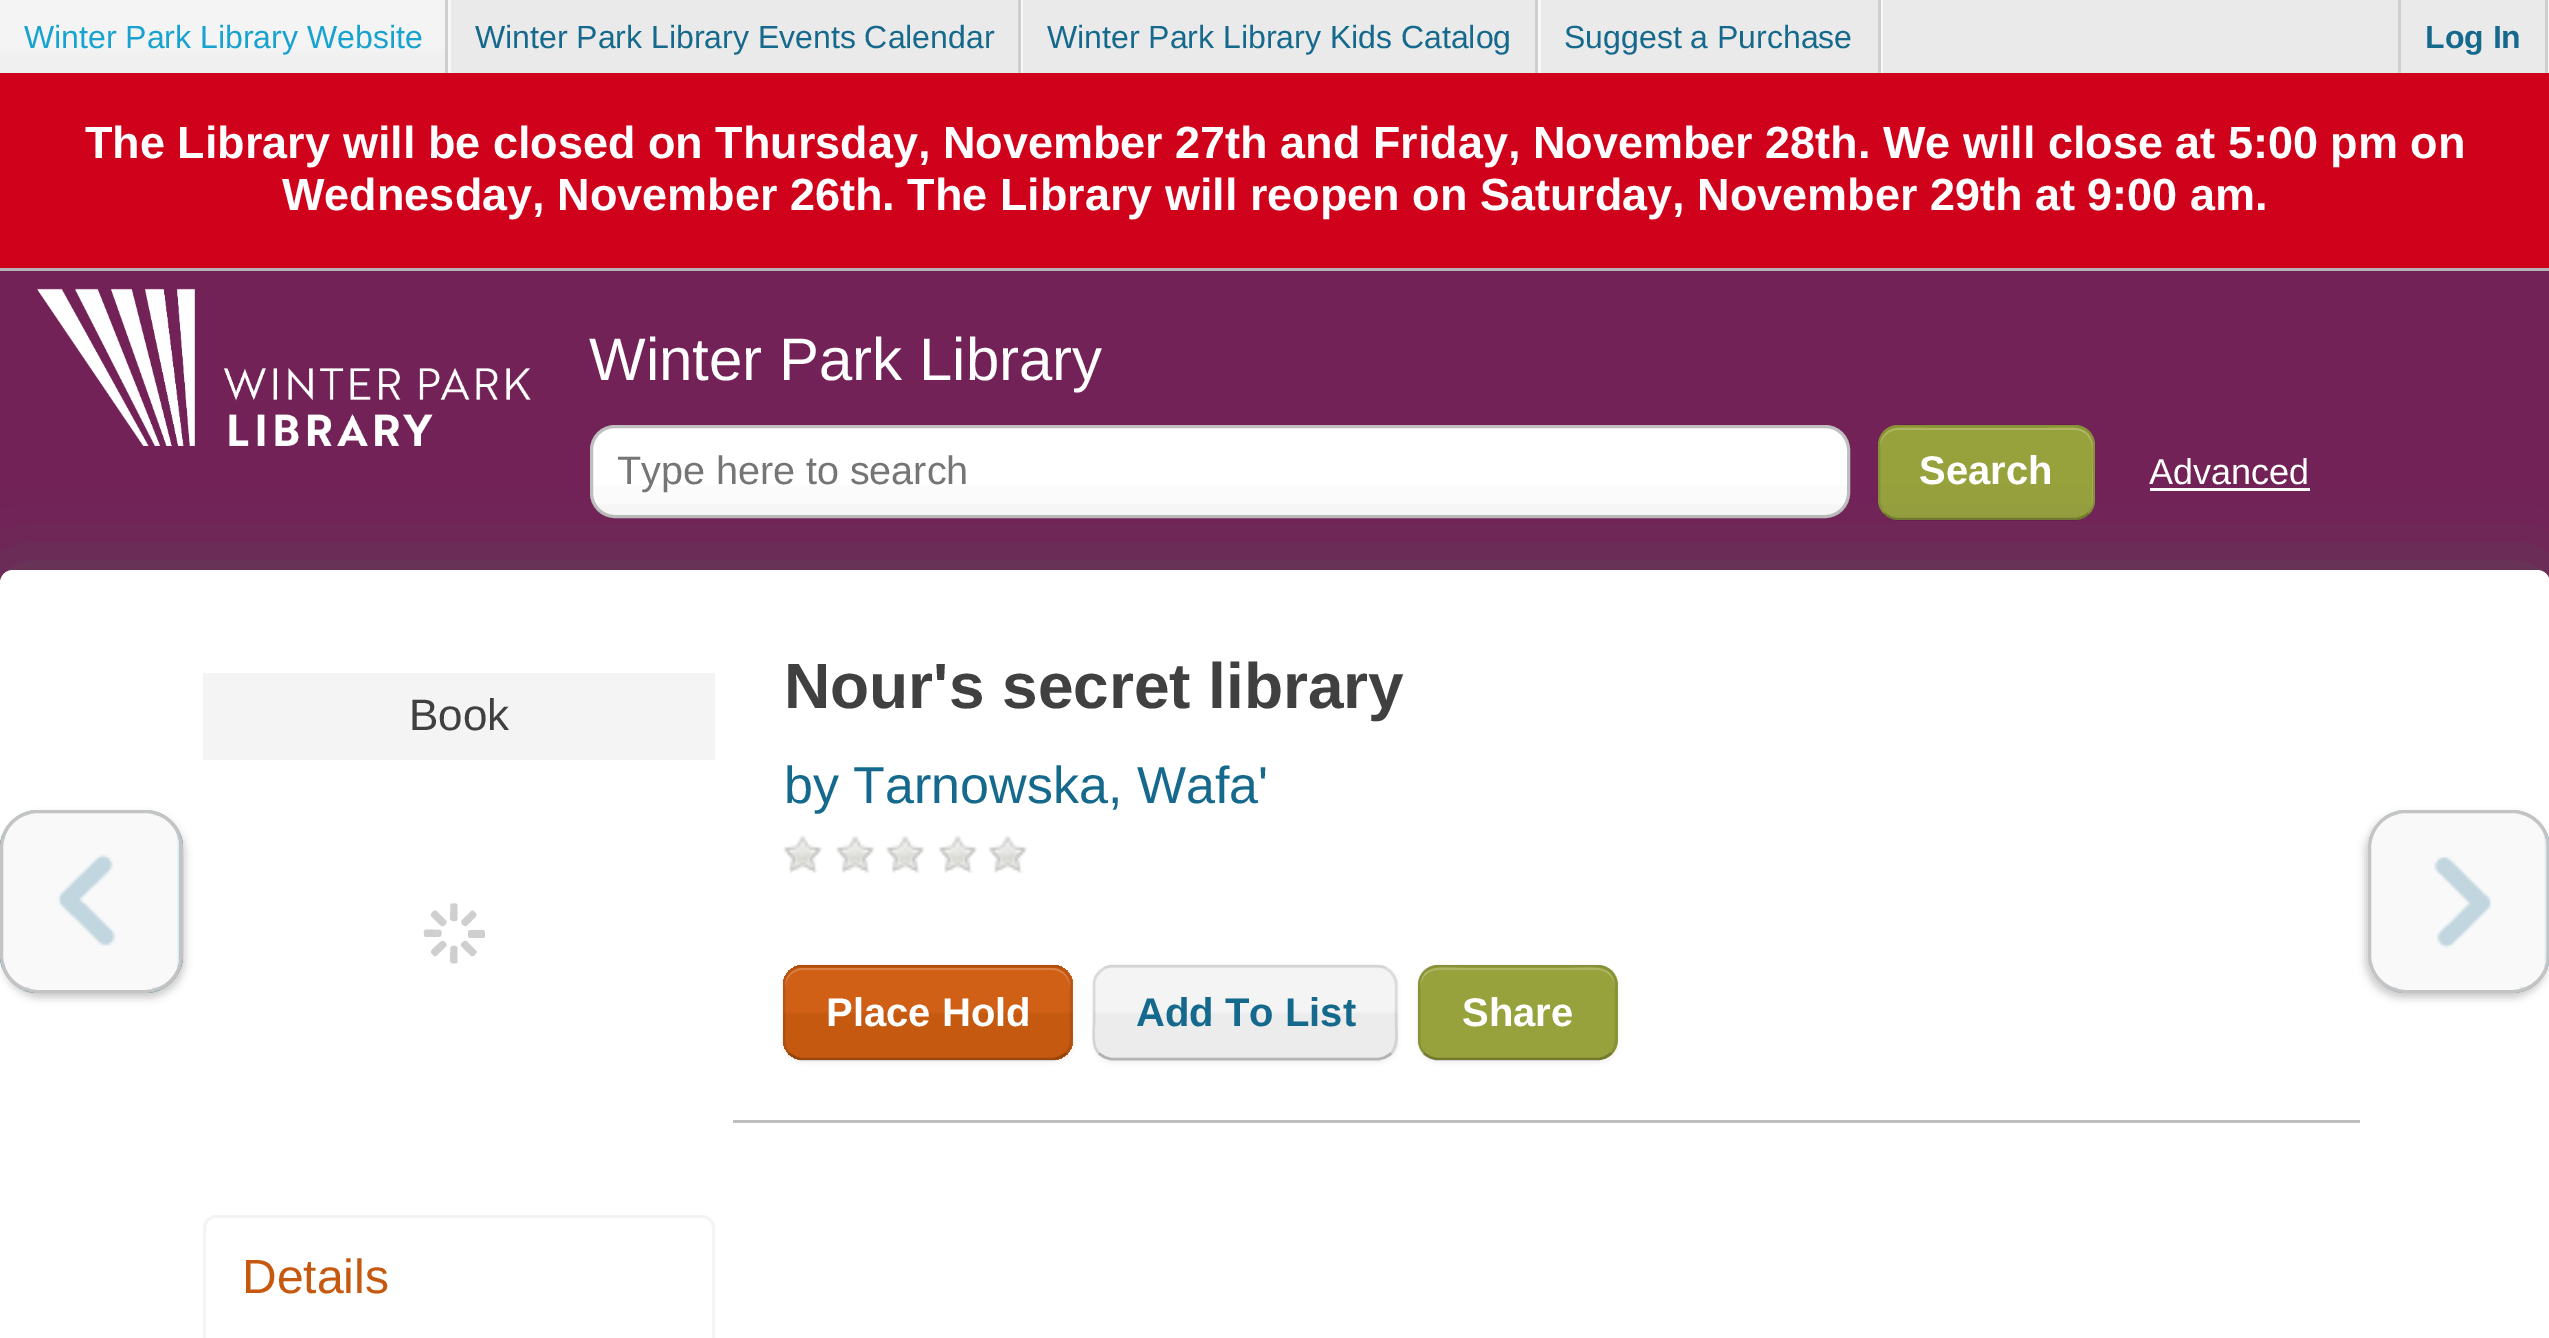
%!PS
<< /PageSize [2549 1338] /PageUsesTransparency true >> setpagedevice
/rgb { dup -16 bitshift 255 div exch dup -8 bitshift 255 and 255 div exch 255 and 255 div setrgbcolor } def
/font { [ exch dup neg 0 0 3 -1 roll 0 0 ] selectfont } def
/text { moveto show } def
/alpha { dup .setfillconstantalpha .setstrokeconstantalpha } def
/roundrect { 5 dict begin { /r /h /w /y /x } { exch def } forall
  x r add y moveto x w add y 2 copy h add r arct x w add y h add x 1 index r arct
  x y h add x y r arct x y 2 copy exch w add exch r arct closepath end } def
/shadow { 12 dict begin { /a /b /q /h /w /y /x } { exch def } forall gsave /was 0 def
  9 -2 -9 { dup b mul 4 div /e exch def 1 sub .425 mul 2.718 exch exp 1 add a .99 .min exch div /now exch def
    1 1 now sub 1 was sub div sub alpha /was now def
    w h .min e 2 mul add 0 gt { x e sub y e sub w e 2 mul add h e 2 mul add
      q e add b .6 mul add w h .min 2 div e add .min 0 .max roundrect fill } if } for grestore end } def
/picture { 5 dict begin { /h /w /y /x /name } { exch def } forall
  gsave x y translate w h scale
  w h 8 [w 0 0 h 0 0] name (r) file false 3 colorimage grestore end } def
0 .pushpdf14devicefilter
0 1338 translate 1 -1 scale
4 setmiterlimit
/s1 { /LiberationSans-Regular 32 font 16#17A2D0 rgb } def
/s2 { /LiberationSans-Regular 32 font 16#15698C rgb } def
/s3 { /LiberationSans-Bold 32 font 16#15698C rgb } def
/s4 { /LiberationSans-Bold 45 font 16#FFFFFF rgb } def
/s5 { /LiberationSans-Regular 60 font 16#FFFFFF rgb } def
/s6 { /LiberationSans-Regular 39.5 font 16#757575 rgb } def
/s7 { /LiberationSans-Bold 40 font 16#FFFFFF rgb } def
/s8 { /LiberationSans-Regular 36 font 16#FFFFFF rgb } def
/s9 { /LiberationSans-Regular 44 font 16#404040 rgb } def
/s10 { /LiberationSans-Regular 48 font 16#C65910 rgb } def
/s11 { /LiberationSans-Bold 64 font 16#404040 rgb } def
/s12 { /LiberationSans-Regular 52 font 16#15698C rgb } def
/s13 { /LiberationSans-Bold 40 font 16#15698C rgb } def
16#EAEAEA rgb
0 0 2549 1338 rectfill
16#F8F8F8 rgb
448 0 3 73 rectfill
gsave 0 0 moveto 445 0 lineto 445 73 lineto 0 73 lineto closepath clip newpath
<< /ShadingType 2 /ColorSpace /DeviceRGB /Coords [223 0 223 73] /Extend [true true] /Function << /FunctionType 3 /Domain [0 1] /Functions [<< /FunctionType 2 /Domain [0 1] /C0 [0.957 0.957 0.957] /C1 [0.957 0.957 0.957] /N 1 >> << /FunctionType 2 /Domain [0 1] /C0 [0.957 0.957 0.957] /C1 [0.941 0.941 0.941] /N 1 >> << /FunctionType 2 /Domain [0 1] /C0 [0.941 0.941 0.941] /C1 [0.941 0.941 0.941] /N 1 >>] /Bounds [0.6 0.8] /Encode [0 1 0 1 0 1] >> >> shfill grestore
16#CECECE rgb
445 0 3 73 rectfill
s1
(Winter Park Library Website) 24 48 text
16#F8F8F8 rgb
1021 0 2 73 rectfill
16#CECECE rgb
1018 0 3 73 rectfill
s2
(Winter Park Library Events Calendar) 475 48 text
16#F8F8F8 rgb
1538 0 3 73 rectfill
16#CECECE rgb
1535 0 3 73 rectfill
s2
(Winter Park Library Kids Catalog) 1047 48 text
16#F8F8F8 rgb
1881 0 2 73 rectfill
16#CECECE rgb
1878 0 3 73 rectfill
s2
(Suggest a Purchase) 1564 48 text
16#CECECE rgb
2398 0 3 73 rectfill
16#F8F8F8 rgb
2548 0 1 73 rectfill
16#CECECE rgb
2545 0 3 73 rectfill
s3
(Log In) 2425 48 text
16#D0021B rgb
0 73 2549 195 rectfill
s4
(The Library will be closed on Thursday, November 27th and Friday, November 28th. We will close at 5:00 pm on) 85 158 text
(Wednesday, November 26th. The Library will reopen on Saturday, November 29th at 9:00 am.) 282 210 text
16#722257 rgb
0 271 2549 312 rectfill
16#B4B4B4 rgb
0 268 2549 3 rectfill
(pic1.raw) 37 288 494 158 picture
s5
(Winter Park Library) 589 380 text
591.5 426.5 1257 90 23.5 roundrect gsave fill grestore
16#BFBFBF rgb
3 setlinewidth
stroke
gsave
618 450 1127 45 rectclip
s6
(Type here to search) 617 484 text
grestore
16#98A23C rgb
1878 425 217 95 20 roundrect fill
16#ADB563 rgb
1898 430 moveto 2075 430 lineto 2085 430 2092 438 2092 448 curveto 2092 502 lineto 2091 508 lineto 2092 506 2093 503 2093 500 curveto 2093 446 lineto 2093 436 2085 428 2075 428 curveto 1898 428 lineto 1888 428 1880 436 1880 446 curveto 1880 448 lineto 1880 438 1888 430 1898 430 curveto closepath fill
0.25 alpha
16#000000 rgb
2.5 setlinewidth
2088.5 513.5 moveto 2084.5 517 2080 519 2075 519 curveto 1897.5 519 lineto 1892.5 519 1888 517 1884 513.5 curveto stroke
0.1 alpha
1884 513.5 moveto 1878 507 1879 499 1879 491 curveto 1879 441.5 lineto 1883.5 420 1913 426 1927 426 curveto 2045.5 426 lineto 2059.5 426 2091.5 420 2093.5 443 curveto 2094 491 lineto 2094 499 2094.5 507 2088.5 513.5 curveto stroke
1 alpha
s7
(Search) 1919 484 text
s8
(Advanced) 2149 484 text
2150 488 160 3 rectfill
16#555555 rgb
0 570 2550 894 13 37.5 0.7 shadow
16#FFFFFF rgb
0 570 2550 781 13 roundrect fill
16#000000 rgb
3 815 182 183 38 4 0.2 shadow
16#15698C rgb
0 810 183 183 38 roundrect fill
(pic2.raw) 2 810 179 180 picture
16#C4C4C4 rgb
3 setlinewidth
1.5 811.5 180 180 36.5 roundrect stroke
16#F4F4F4 rgb
203 673 512 87 rectfill
s9
(Book) 409 730 text
16#CFCFCF rgb
468 930 17 8 2.5 roundrect fill
467 941.5 moveto 476.5 951 lineto 477 952 476.5 953 476 953.5 curveto 473 957 472 957 469 954 curveto 461 946 lineto 460 943.5 465 939 467 941.5 curveto closepath 457.5 948.5 moveto 457.5 962 lineto 457 963 456 963.5 455 963.5 curveto 451 963.5 450 963 450 959 curveto 450.5 947.5 lineto 451.5 945 457.5 945 457.5 948.5 curveto closepath 446 946.5 moveto 436 956 lineto 435.5 956.5 434 956 433.5 955.5 curveto 430.5 952.5 430 952 433 948.5 curveto 441.5 941 lineto 444 940 448 944.5 446 946.5 curveto closepath 439 937 moveto 425.5 937 lineto 424.5 936.5 424 935.5 424 934.5 curveto 423.5 930.5 424 929.5 428.5 929.5 curveto 440 930 lineto 442.5 931 442 937 439 937 curveto closepath 440.5 925.5 moveto 431 916 lineto 431 915 431 914 431.5 913 curveto 434.5 910 435.5 909.5 438.5 913 curveto 446.5 921 lineto 447.5 923.5 443 928 440.5 925.5 curveto closepath fill
450 918.5 moveto 450.5 905 lineto 450.5 904 451.5 903.5 452.5 903.5 curveto 457 903 457.5 903.5 457.5 908 curveto 457.5 919.5 lineto 456.5 922 450 921.5 450 918.5 curveto closepath 462 920 moveto 471.5 911 lineto 472.5 910.5 473.5 910.5 474 911.5 curveto 477 914 477.5 915 474.5 918 curveto 466.5 926 lineto 463.5 927 459.5 922.5 462 920 curveto closepath fill
16#F4F4F4 rgb
204.5 1216.5 509 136 11.5 roundrect stroke
s10
(Details) 242 1293 text
16#BFBFBF rgb
733 1120 1627 3 rectfill
s11
(Nour's secret library) 784 708 text
s12
(by Tarnowska, Wafa') 784 803 text
(pic3.raw) 783 835 40 39 picture
(pic4.raw) 835 835 40 39 picture
(pic5.raw) 885 835 40 39 picture
(pic3.raw) 938 835 40 39 picture
(pic3.raw) 988 835 40 39 picture
16#000000 rgb
783 968 290 95 20 2.5 0.05 shadow
gsave
783 965 290 95 20 roundrect clip newpath
gsave 792 965 moveto 1064 965 lineto 1064 968 lineto 792 968 lineto closepath clip newpath
<< /ShadingType 2 /ColorSpace /DeviceRGB /Coords [928 878 928 968] /Extend [true true] /Function << /FunctionType 3 /Domain [0 1] /Functions [<< /FunctionType 2 /Domain [0 1] /C0 [0.812 0.376 0.082] /C1 [0.812 0.376 0.082] /N 1 >> << /FunctionType 2 /Domain [0 1] /C0 [0.812 0.376 0.082] /C1 [0.773 0.349 0.059] /N 1 >> << /FunctionType 2 /Domain [0 1] /C0 [0.773 0.349 0.059] /C1 [0.773 0.349 0.059] /N 1 >>] /Bounds [0.48 0.52] /Encode [0 1 0 1 0 1] >> >> shfill grestore
gsave 783 968 moveto 1073 968 lineto 1073 1058 lineto 783 1058 lineto closepath clip newpath
<< /ShadingType 2 /ColorSpace /DeviceRGB /Coords [928 968 928 1058] /Extend [true true] /Function << /FunctionType 3 /Domain [0 1] /Functions [<< /FunctionType 2 /Domain [0 1] /C0 [0.812 0.376 0.082] /C1 [0.812 0.376 0.082] /N 1 >> << /FunctionType 2 /Domain [0 1] /C0 [0.812 0.376 0.082] /C1 [0.773 0.349 0.059] /N 1 >> << /FunctionType 2 /Domain [0 1] /C0 [0.773 0.349 0.059] /C1 [0.773 0.349 0.059] /N 1 >>] /Bounds [0.48 0.52] /Encode [0 1 0 1 0 1] >> >> shfill grestore
gsave 794 1058 moveto 1062 1058 lineto 1062 1060 lineto 794 1060 lineto closepath clip newpath
<< /ShadingType 2 /ColorSpace /DeviceRGB /Coords [928 1058 928 1148] /Extend [true true] /Function << /FunctionType 3 /Domain [0 1] /Functions [<< /FunctionType 2 /Domain [0 1] /C0 [0.812 0.376 0.082] /C1 [0.812 0.376 0.082] /N 1 >> << /FunctionType 2 /Domain [0 1] /C0 [0.812 0.376 0.082] /C1 [0.773 0.349 0.059] /N 1 >> << /FunctionType 2 /Domain [0 1] /C0 [0.773 0.349 0.059] /C1 [0.773 0.349 0.059] /N 1 >>] /Bounds [0.48 0.52] /Encode [0 1 0 1 0 1] >> >> shfill grestore
grestore
16#D98044 rgb
802 970 moveto 1052 970 lineto 1062 970 1070 978 1070 988 curveto 1070 986 lineto 1070 976 1062 968 1052 968 curveto 803 968 lineto 793 968 785 976 785 986 curveto 785 988 lineto 785 978 793 970 802 970 curveto closepath fill
0.25 alpha
16#000000 rgb
2.5 setlinewidth
1066 1053.5 moveto 1062 1057 1057.5 1059 1052.5 1059 curveto 802.5 1059 lineto 797.5 1059 793 1057 789 1053.5 curveto stroke
0.1 alpha
789 1053.5 moveto 783 1047 784 1039 784 1031 curveto 784 981.5 lineto 786 972.5 793.5 966.5 802.5 966 curveto 1052.5 966 lineto 1062 966.5 1070 973.5 1071 983 curveto 1071 1021.5 lineto 1071 1032 1074 1045 1066 1053.5 curveto stroke
1 alpha
s7
(Place Hold) 826 1026 text
16#000000 rgb
1093 968 305 95 20 2.5 0.05 shadow
gsave
1093 965 305 95 20 roundrect clip newpath
gsave 1102 965 moveto 1389 965 lineto 1389 968 lineto 1102 968 lineto closepath clip newpath
<< /ShadingType 2 /ColorSpace /DeviceRGB /Coords [1245 878 1245 968] /Extend [true true] /Function << /FunctionType 3 /Domain [0 1] /Functions [<< /FunctionType 2 /Domain [0 1] /C0 [0.957 0.957 0.957] /C1 [0.957 0.957 0.957] /N 1 >> << /FunctionType 2 /Domain [0 1] /C0 [0.957 0.957 0.957] /C1 [0.929 0.925 0.925] /N 1 >> << /FunctionType 2 /Domain [0 1] /C0 [0.929 0.925 0.925] /C1 [0.929 0.925 0.925] /N 1 >>] /Bounds [0.48 0.52] /Encode [0 1 0 1 0 1] >> >> shfill grestore
gsave 1093 968 moveto 1398 968 lineto 1398 1058 lineto 1093 1058 lineto closepath clip newpath
<< /ShadingType 2 /ColorSpace /DeviceRGB /Coords [1245 968 1245 1058] /Extend [true true] /Function << /FunctionType 3 /Domain [0 1] /Functions [<< /FunctionType 2 /Domain [0 1] /C0 [0.957 0.957 0.957] /C1 [0.957 0.957 0.957] /N 1 >> << /FunctionType 2 /Domain [0 1] /C0 [0.957 0.957 0.957] /C1 [0.929 0.925 0.925] /N 1 >> << /FunctionType 2 /Domain [0 1] /C0 [0.929 0.925 0.925] /C1 [0.929 0.925 0.925] /N 1 >>] /Bounds [0.48 0.52] /Encode [0 1 0 1 0 1] >> >> shfill grestore
grestore
0.25 alpha
1391 1053.5 moveto 1387 1057 1382.5 1059 1377.5 1059 curveto 1112.5 1059 lineto 1107.5 1059 1103 1057 1099 1053.5 curveto stroke
0.1 alpha
1099 1053.5 moveto 1091 1045 1094 1032 1094 1021.5 curveto 1094 983 lineto 1095 973.5 1103 966.5 1112.5 966 curveto 1377.5 966 lineto 1387 966.5 1395 973.5 1396 983 curveto 1396 1021.5 lineto 1396 1032 1399 1045 1391 1053.5 curveto stroke
1 alpha
s13
(Add To List) 1136 1026 text
16#000000 rgb
1418 968 200 95 20 2.5 0.05 shadow
16#98A23C rgb
1418 965 200 95 20 roundrect fill
16#ADB563 rgb
1438 970 moveto 1598 970 lineto 1607 970 1615 978 1615 988 curveto 1615 962 1588 968 1570 968 curveto 1464 968 lineto 1447 968 1420 962 1420 988 curveto 1420 978 1428 970 1438 970 curveto closepath fill
0.25 alpha
16#000000 rgb
1611 1053.5 moveto 1607 1057 1602.5 1059 1597.5 1059 curveto 1437.5 1059 lineto 1432.5 1059 1428 1057 1424 1053.5 curveto stroke
0.1 alpha
1424 1053.5 moveto 1420.5 1049.5 1419 1045 1419 1040 curveto 1419 985 lineto 1419 980 1420.5 975.5 1424 971.5 curveto 1428 968 1432.5 966 1437.5 966 curveto 1597.5 966 lineto 1602.5 966 1607 968 1611 971.5 curveto 1614.5 975.5 1616 980 1616 985 curveto 1616 1040 lineto 1616 1045 1614.5 1049.5 1611 1053.5 curveto stroke
1 alpha
s7
(Share) 1462 1026 text
gsave
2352 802 moveto 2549 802 lineto 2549 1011 lineto 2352 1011 lineto closepath 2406 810 moveto 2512 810 lineto 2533 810 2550 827 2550 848 curveto 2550 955 lineto 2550 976 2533 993 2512 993 curveto 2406 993 lineto 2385 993 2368 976 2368 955 curveto 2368 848 lineto 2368 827 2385 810 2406 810 curveto closepath eoclip newpath
16#000000 rgb
2365 815 183 183 38 4 0.2 shadow
grestore
(pic6.raw) 2369 810 180 183 picture
16#C4C4C4 rgb
3 setlinewidth
2369.5 811.5 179 180 36.5 roundrect stroke
.poppdf14devicefilter showpage
